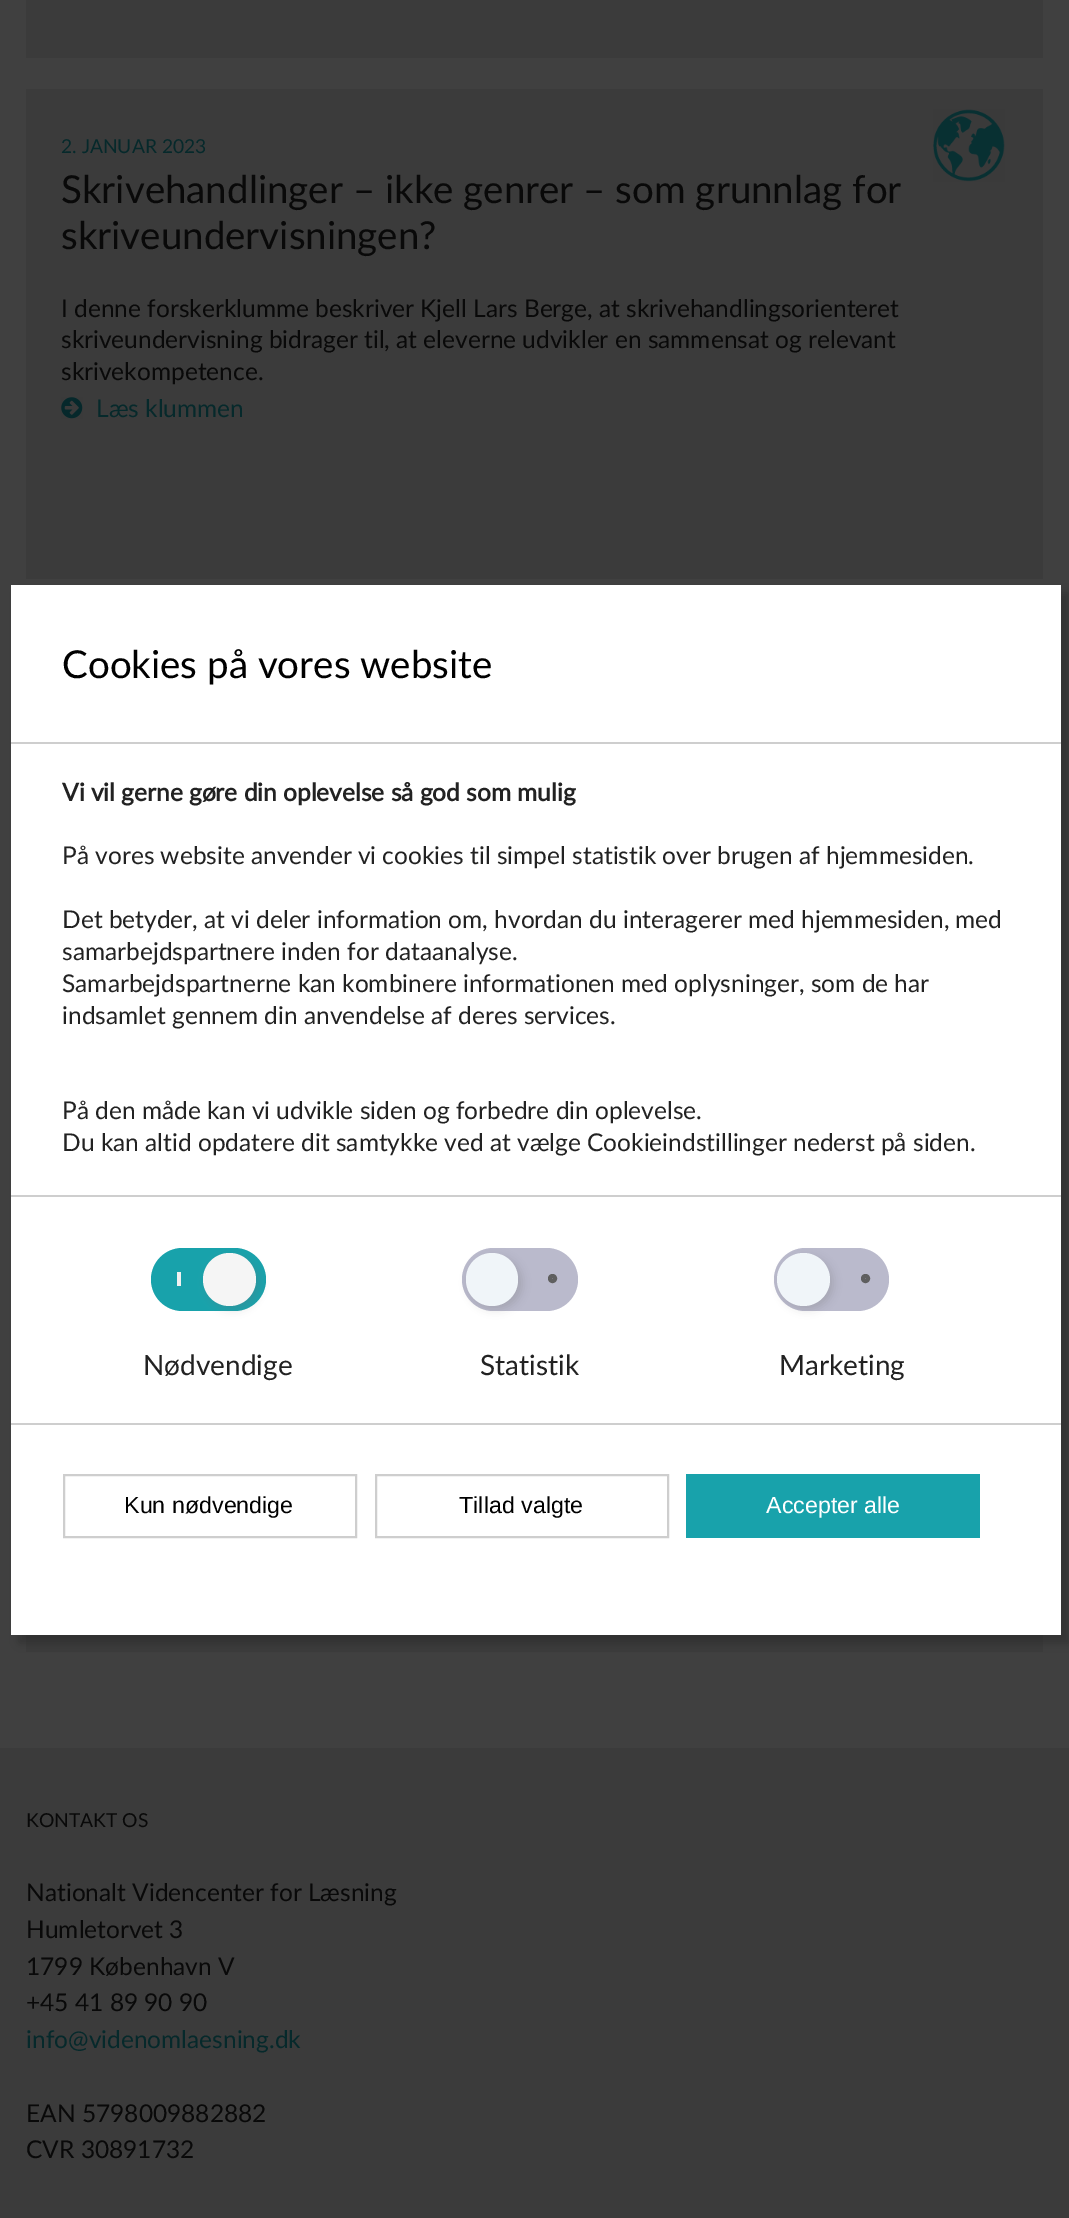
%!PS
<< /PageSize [1069 2218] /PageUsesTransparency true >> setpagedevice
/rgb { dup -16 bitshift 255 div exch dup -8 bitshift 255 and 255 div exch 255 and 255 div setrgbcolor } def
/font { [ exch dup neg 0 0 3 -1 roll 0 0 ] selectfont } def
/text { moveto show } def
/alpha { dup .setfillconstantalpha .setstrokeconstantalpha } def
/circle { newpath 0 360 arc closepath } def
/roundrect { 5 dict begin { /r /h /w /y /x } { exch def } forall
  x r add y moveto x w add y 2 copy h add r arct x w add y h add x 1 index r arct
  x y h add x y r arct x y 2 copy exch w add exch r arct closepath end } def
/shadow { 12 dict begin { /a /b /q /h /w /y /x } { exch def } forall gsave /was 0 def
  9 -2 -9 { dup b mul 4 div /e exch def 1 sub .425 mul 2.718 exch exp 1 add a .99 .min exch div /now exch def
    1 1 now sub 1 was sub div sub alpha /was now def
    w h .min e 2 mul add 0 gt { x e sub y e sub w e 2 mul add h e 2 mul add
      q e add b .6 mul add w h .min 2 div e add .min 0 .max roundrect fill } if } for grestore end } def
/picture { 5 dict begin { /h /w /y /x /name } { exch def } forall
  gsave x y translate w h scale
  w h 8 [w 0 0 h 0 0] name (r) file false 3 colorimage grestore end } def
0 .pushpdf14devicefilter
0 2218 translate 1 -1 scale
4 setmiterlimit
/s1 { /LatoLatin-Regular 19.25 font 16#06292B rgb } def
/s2 { /LatoLatin-Regular 38.5 font 16#090909 rgb } def
/s3 { /LatoLatin-Regular 24.5 font 16#090909 rgb } def
/s4 { /LatoLatin-Regular 24.5 font 16#06292B rgb } def
/s5 { /LatoLatin-Regular 19.25 font 16#090909 rgb } def
/s6 { /LatoLatin-Regular 38.5 font 16#000000 rgb } def
/s7 { /LatoLatin-Bold 24.5 font 16#222222 rgb } def
/s8 { /LatoLatin-Regular 24.5 font 16#222222 rgb } def
/s9 { /LatoLatin-Regular 28 font 16#222222 rgb } def
/s10 { /LiberationSans-Regular 23.25 font 16#000000 rgb } def
/s11 { /LiberationSans-Regular 23.25 font 16#FFFFFF rgb } def
16#404040 rgb
0 0 1069 2218 rectfill
16#3B3B3B rgb
26 0 1017 58 rectfill
26 89 1017 490 rectfill
s1
(2. JANUAR 2023) 61 153 text
(pic1.raw) 933 109 72 73 picture
s2
(Skrivehandlinger – ikke genrer – som grunnlag for) 61 203 text
(skriveundervisningen?) 61 249 text
s3
(I denne forskerklumme beskriver Kjell Lars Berge, at skrivehandlingsorienteret) 61 317 text
(skriveundervisning bidrager til, at eleverne udvikler en sammensat og relevant) 61 348 text
(skrivekompetence.) 61 380 text
(pic2.raw) 61 397 22 22 picture
s4
(Læs klummen) 96 417 text
16#3B3B3B rgb
26 1635 1017 17 rectfill
0 1748 1069 470 rectfill
s5
(KONTAKT OS) 26 1827 text
s3
(Nationalt Videncenter for Læsning) 26 1901 text
(Humletorvet 3) 26 1938 text
(1799 København V) 26 1975 text
(+45 41 89 90 90) 26 2011 text
s4
(info@videnomlaesning.dk) 26 2048 text
s3
(EAN 5798009882882) 26 2122 text
(CVR 30891732) 26 2158 text
16#000000 rgb
19 593 1050 1050 0 4.5 0.2 shadow
16#FFFFFF rgb
11 585 1050 1050 rectfill
s6
(Cookies på vores website) 62 678 text
16#CECECE rgb
11 742 1050 2 rectfill
s7
(Vi vil gerne gøre din oplevelse så god som mulig) 62 801 text
s8
(På vores website anvender vi cookies til simpel statistik over brugen af hjemmesiden.) 62 864 text
(Det betyder, at vi deler information om, hvordan du interagerer med hjemmesiden, med) 62 928 text
(samarbejdspartnere inden for dataanalyse.) 62 960 text
(Samarbejdspartnerne kan kombinere informationen med oplysninger, som de har) 62 992 text
(indsamlet gennem din anvendelse af deres services.) 62 1024 text
(På den måde kan vi udvikle siden og forbedre din oplevelse.) 62 1119 text
(Du kan altid opdatere dit samtykke ved at vælge Cookieindstillinger nederst på siden.) 62 1151 text
16#CECECE rgb
11 1195 1050 2 rectfill
16#18A2AB rgb
151 1248 115 63 31.5 roundrect fill
16#F1F1F1 rgb
177 1272 4 14 rectfill
16#6E6E6E rgb
207 1257 52 52 26 4.5 0.26 shadow
16#F5F5F5 rgb
229.5 1279.5 26.5 circle fill
s9
(Nødvendige) 143 1375 text
16#BABACC rgb
462 1248 116 63 31.5 roundrect fill
16#6E6E6E rgb
469 1257 53 52 26 4.5 0.26 shadow
16#F0F5F9 rgb
466 1253 52 53 26 roundrect fill
16#5F5F5F rgb
4 setlinewidth
552.5 1278.5 2.5 circle stroke
s9
(Statistik) 480 1375 text
16#BABACC rgb
774 1248 115 63 31.5 roundrect fill
16#6E6E6E rgb
781 1257 52 52 26 4.5 0.26 shadow
16#F0F5F9 rgb
803.5 1279.5 26.5 circle fill
16#5F5F5F rgb
865.5 1278.5 2.5 circle stroke
s9
(Marketing) 779 1375 text
16#CECECE rgb
11 1423 1050 2 rectfill
2 setlinewidth
64 1475 292 62 rectstroke
s10
(Kun nødvendige) 124 1513 text
16#CECECE rgb
376 1475 292 62 rectstroke
s10
(Tillad valgte) 459 1513 text
16#18A2AB rgb
686 1474 294 64 rectfill
s11
(Accepter alle) 766 1513 text
.poppdf14devicefilter showpage
